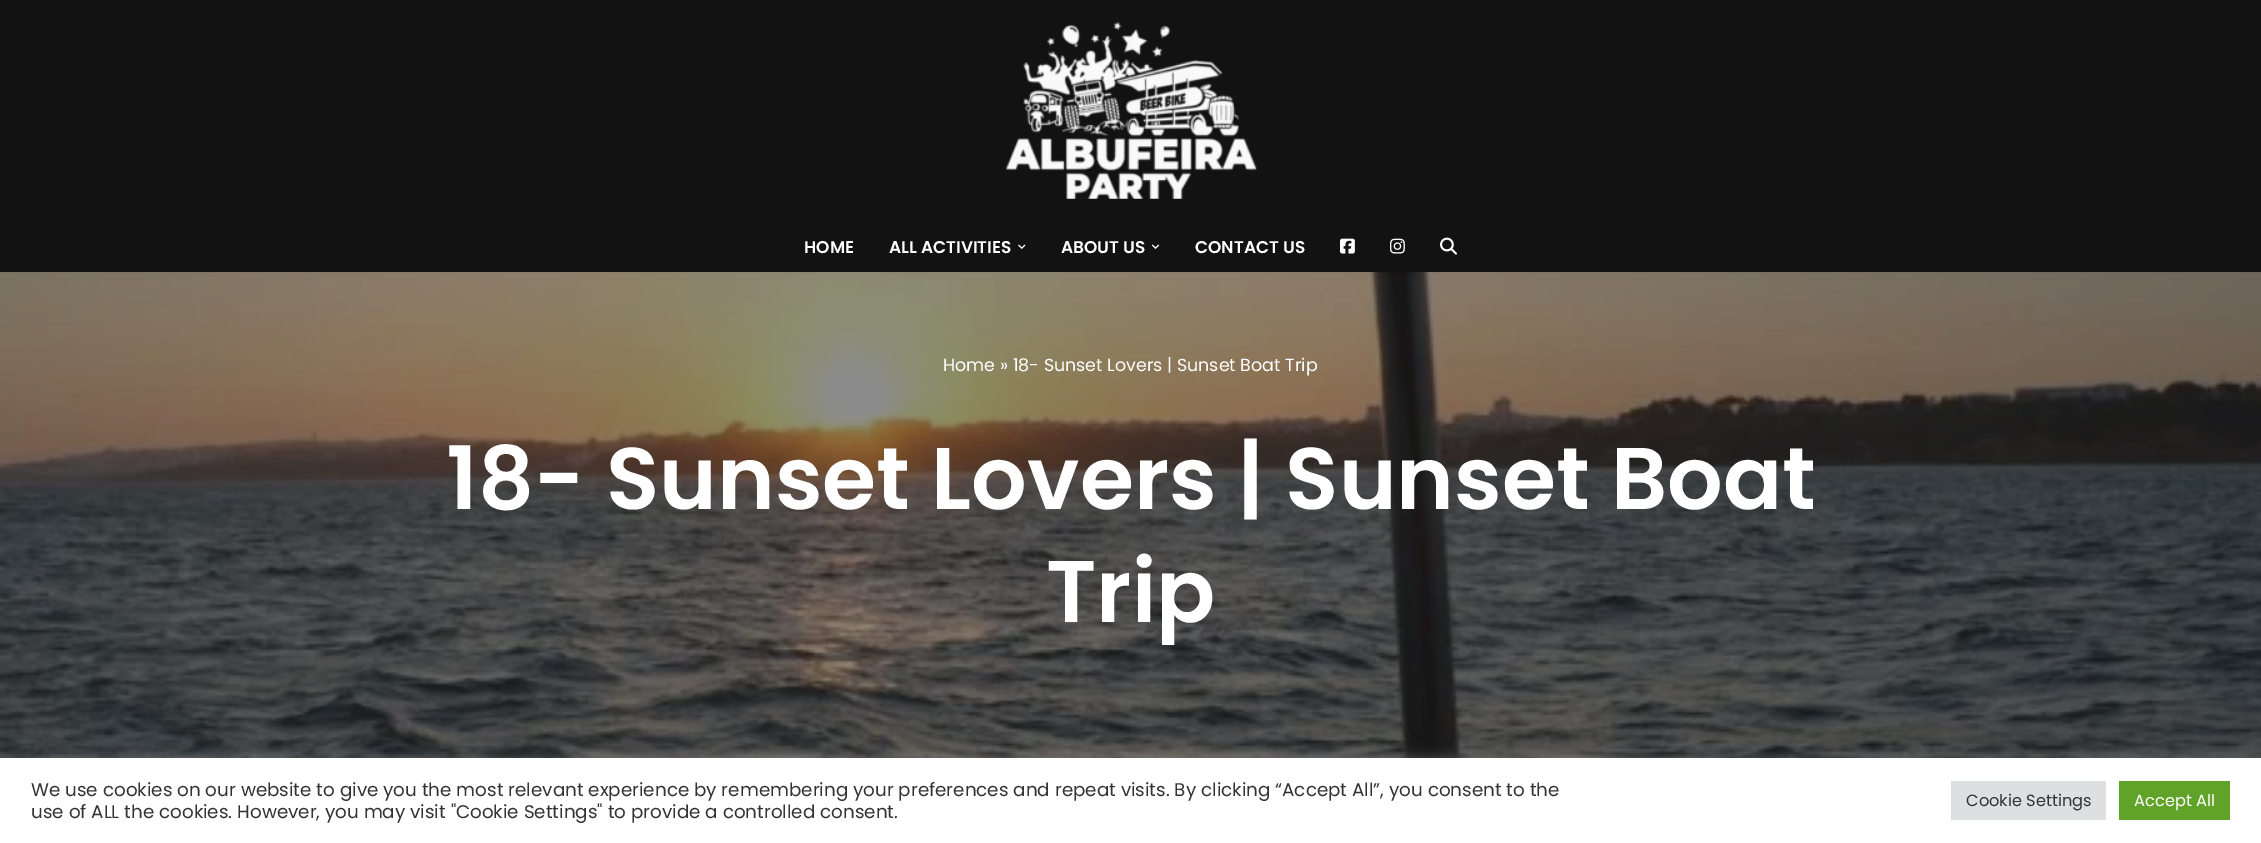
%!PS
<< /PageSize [2261 843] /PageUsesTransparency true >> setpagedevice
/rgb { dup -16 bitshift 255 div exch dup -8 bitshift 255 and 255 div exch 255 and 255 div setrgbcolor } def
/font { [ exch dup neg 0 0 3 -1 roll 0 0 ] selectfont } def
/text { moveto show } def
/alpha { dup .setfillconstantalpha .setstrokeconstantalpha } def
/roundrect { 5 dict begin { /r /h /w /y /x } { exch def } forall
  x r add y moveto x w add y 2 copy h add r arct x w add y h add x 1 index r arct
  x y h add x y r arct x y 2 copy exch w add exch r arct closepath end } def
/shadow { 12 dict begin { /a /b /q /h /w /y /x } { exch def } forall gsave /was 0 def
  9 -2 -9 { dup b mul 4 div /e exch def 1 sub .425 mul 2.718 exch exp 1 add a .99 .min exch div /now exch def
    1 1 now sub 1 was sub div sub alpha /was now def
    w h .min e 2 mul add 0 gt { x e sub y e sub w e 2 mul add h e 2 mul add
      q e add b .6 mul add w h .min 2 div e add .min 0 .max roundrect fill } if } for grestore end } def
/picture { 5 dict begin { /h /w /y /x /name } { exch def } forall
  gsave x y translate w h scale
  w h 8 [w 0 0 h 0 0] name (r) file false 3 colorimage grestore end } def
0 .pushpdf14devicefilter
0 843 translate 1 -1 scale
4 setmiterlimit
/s1 { /Poppins-SemiBold 17 font 16#FFFFFF rgb } def
/s2 { /Poppins-Regular 17.5 font 16#FFFFFF rgb } def
/s3 { /Poppins-SemiBold 87.5 font 16#FFFFFF rgb } def
/s4 { /Poppins-Regular 18.33 font 16#333333 rgb } def
/s5 { /Poppins-Regular 16.25 font 16#333333 rgb } def
/s6 { /Poppins-Regular 16.25 font 16#FFFFFF rgb } def
16#121212 rgb
0 0 2261 843 rectfill
(pic1.raw) 1006 22 251 177 picture
s1
(HOME) 804 253 text
(ALL ACTIVITIES) 889 253 text
(pic2.raw) 1018 244 8 5 picture
(ABOUT US) 1061 253 text
(pic3.raw) 1151 244 9 5 picture
(CONTACT US) 1195 253 text
(pic4.raw) 1340 238 15 16 picture
(pic5.raw) 1390 238 15 16 picture
(pic6.raw) 1440 237 17 18 picture
(pic7.raw) 0 272 2261 486 picture
s2
(Home » 18- Sunset Lovers | Sunset Boat Trip) 943 371 text
s3
(18- Sunset Lovers | Sunset Boat) 446 509 text
(Trip) 1046 622 text
16#ACABAB rgb
0 756 2261 87 0 6 0.3 shadow
16#FFFFFF rgb
0 758 2261 85 rectfill
s4
(We use cookies on our website to give you the most relevant experience by remembering your preferences and repeat visits. By clicking “Accept All”, you consent to the) 31 796 text
(use of ALL the cookies. However, you may visit "Cookie Settings" to provide a controlled consent.) 31 818 text
16#DEDFE0 rgb
1951 781 155 39 rectfill
s5
(Cookie Settings) 1966 806 text
16#61A229 rgb
2119 781 111 39 rectfill
s6
(Accept All) 2134 806 text
.poppdf14devicefilter showpage
